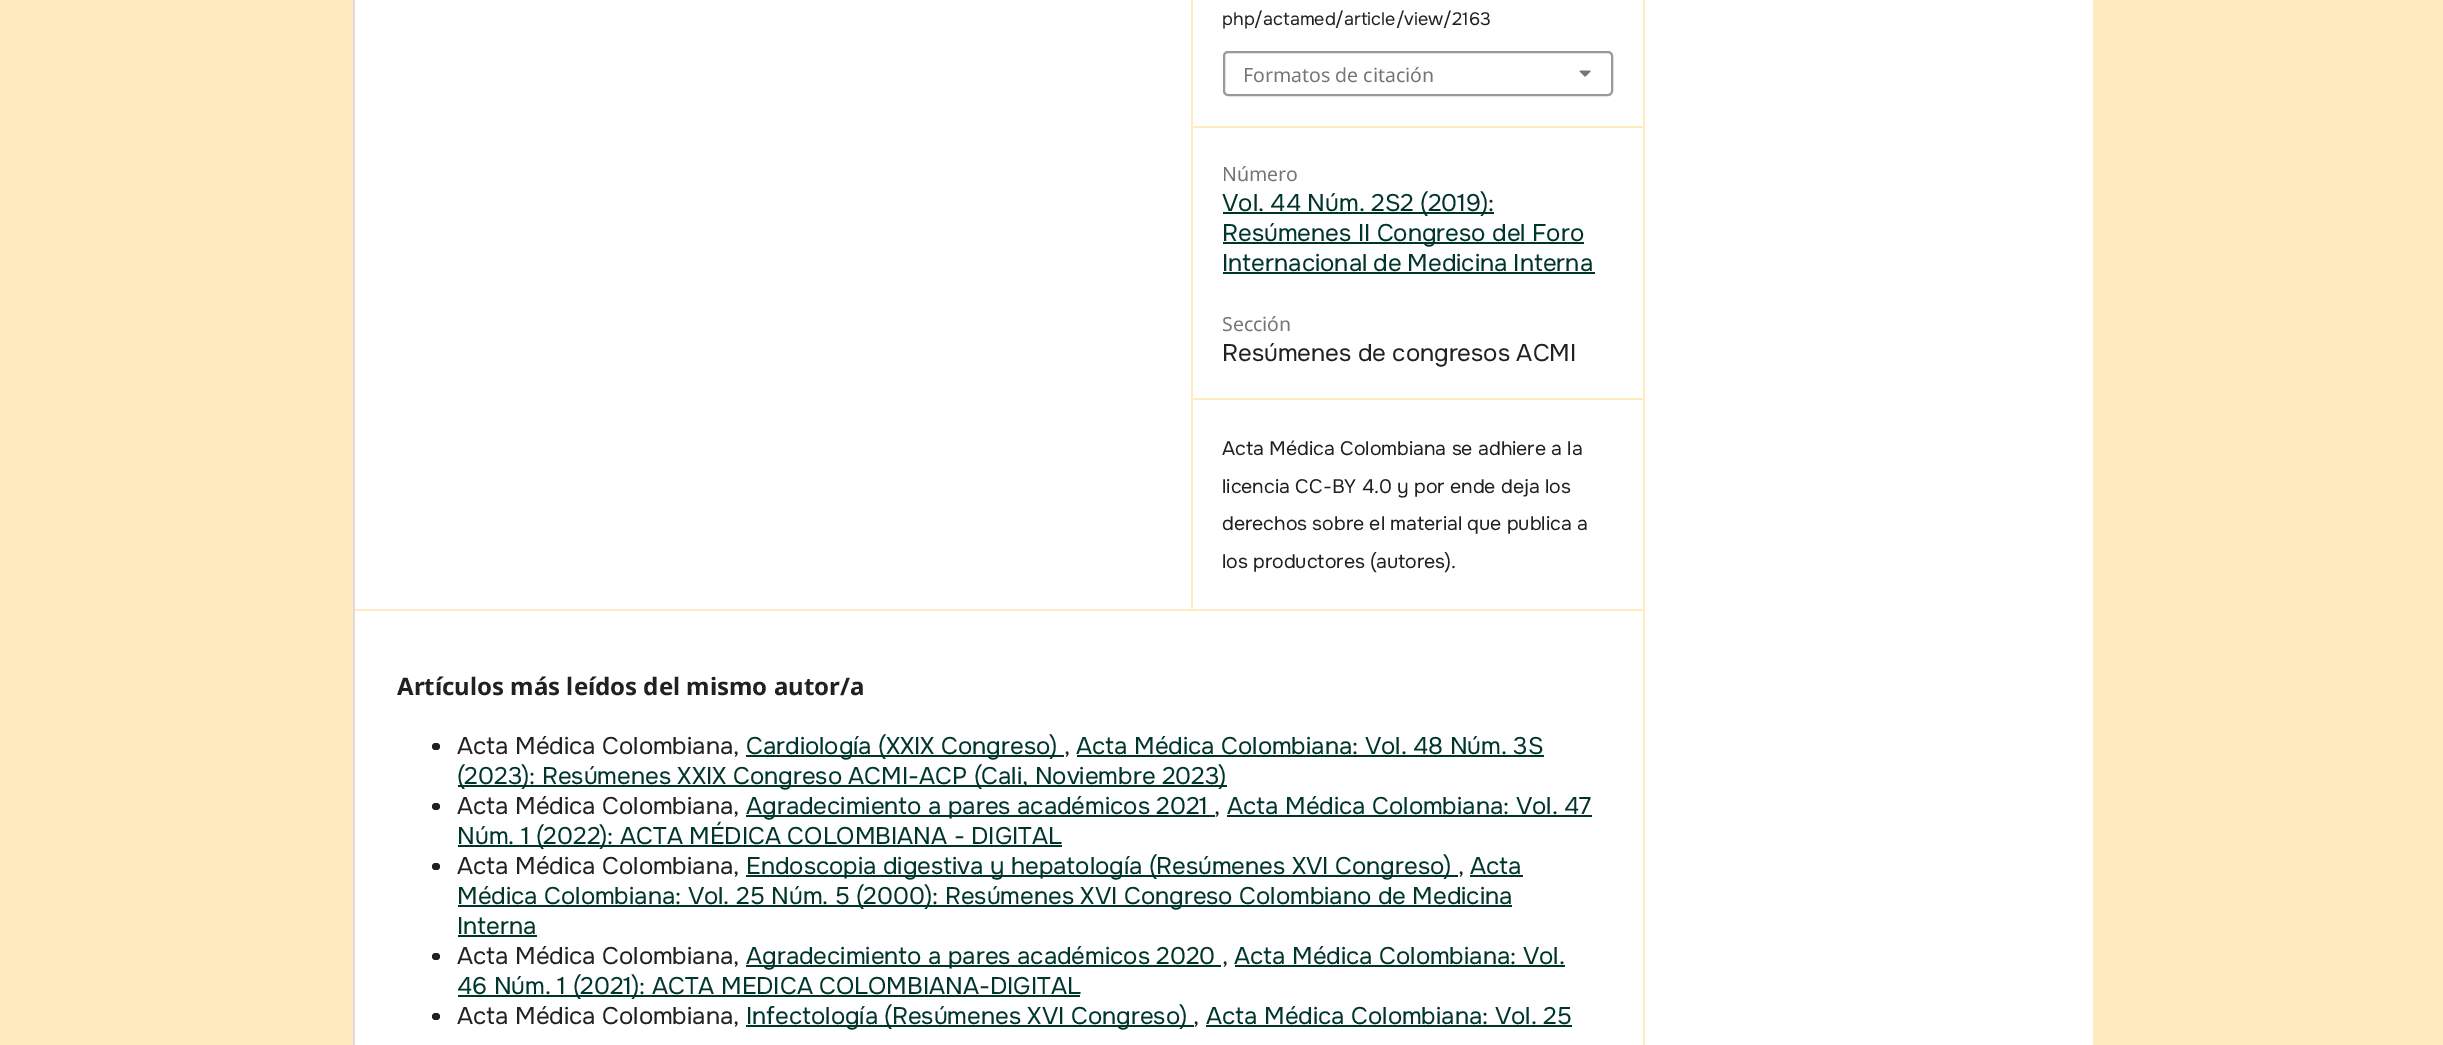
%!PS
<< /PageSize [2443 1045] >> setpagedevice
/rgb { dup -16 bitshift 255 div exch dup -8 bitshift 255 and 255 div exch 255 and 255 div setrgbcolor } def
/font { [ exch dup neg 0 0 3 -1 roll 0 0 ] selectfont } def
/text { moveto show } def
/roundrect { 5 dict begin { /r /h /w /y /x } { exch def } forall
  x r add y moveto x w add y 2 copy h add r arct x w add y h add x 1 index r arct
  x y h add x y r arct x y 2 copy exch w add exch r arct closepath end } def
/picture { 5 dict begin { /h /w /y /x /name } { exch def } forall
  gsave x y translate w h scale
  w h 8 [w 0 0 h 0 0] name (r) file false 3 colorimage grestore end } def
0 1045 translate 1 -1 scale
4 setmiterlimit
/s1 { /Onest-Regular 18 font 16#212121 rgb } def
/s2 { /NotoSans-Regular 19.5 font 16#757575 rgb } def
/s3 { /Onest-Regular 24 font 16#00362A rgb } def
/s4 { /Onest-Regular 24 font 16#212121 rgb } def
/s5 { /Onest-Regular 19.5 font 16#212121 rgb } def
/s6 { /NotoSans-Bold 24 font 16#212121 rgb } def
16#FFEBBF rgb
0 0 2443 1045 rectfill
16#FFFFFF rgb
355 0 1738 1045 rectfill
16#FFEBBF rgb
353 609 1290 2 rectfill
16#DDDDDD rgb
353 0 2 1045 rectfill
16#FFEBBF rgb
1191 126 452 2 rectfill
1191 0 2 128 rectfill
s1
(php/actamed/article/view/2163) 1222 25 text
16#999999 rgb
2 setlinewidth
1224 52 388 43 4 roundrect stroke
s2
(Formatos de citación) 1243 82 text
(pic1.raw) 1579 70 12 7 picture
16#FFEBBF rgb
1191 398 452 2 rectfill
1191 128 2 481 rectfill
s2
(Número) 1222 181 text
16#00362A rgb
1223 212 271 2 rectfill
s3
(Vol. 44 Núm. 2S2 \(2019\):) 1222 211 text
1223 242 361 2 rectfill
(Resúmenes II Congreso del Foro) 1222 241 text
1222 271 moveto -0.5 0 32 (Internacional de Medicina Interna) widthshow
1223 272 372 2 rectfill
s2
(Sección) 1222 331 text
s4
(Resúmenes de congresos ACMI) 1222 361 text
s5
(Acta Médica Colombiana se adhiere a la) 1222 455 text
(licencia CC-BY 4.0 y por ende deja los) 1222 493 text
(derechos sobre el material que publica a) 1222 530 text
(los productores \(autores\).) 1222 568 text
s6
(Artículos más leídos del mismo autor/a) 397 695 text
432 743 8 7 3.5 roundrect fill
s4
(Acta Médica Colombiana,) 457 754 text
16#00362A rgb
746 755 318 2 rectfill
(Cardiología \(XXIX Congreso\)) 746 754 text
(Acta Médica Colombiana: Vol. 48 Núm. 3S) 1076 754 text
1077 755 467 2 rectfill
s4
(,) 1064 754 text
16#00362A rgb
458 785 769 2 rectfill
(\(2023\): Resúmenes XXIX Congreso ACMI-ACP \(Cali, Noviembre 2023\)) 457 784 text
16#212121 rgb
432 803 8 7 3.5 roundrect fill
(Acta Médica Colombiana,) 457 814 text
16#00362A rgb
746 815 469 2 rectfill
(Agradecimiento a pares académicos 2021) 746 814 text
(Acta Médica Colombiana: Vol. 47) 1227 814 text
1227 815 365 2 rectfill
s4
(,) 1214 814 text
16#00362A rgb
458 845 604 2 rectfill
(Núm. 1 \(2022\): ACTA MÉDICA COLOMBIANA - DIGITAL) 457 844 text
16#212121 rgb
432 863 8 7 3.5 roundrect fill
(Acta Médica Colombiana,) 457 874 text
16#00362A rgb
746 875 712 2 rectfill
(Endoscopia digestiva y hepatología \(Resúmenes XVI Congreso\)) 746 874 text
(Acta) 1470 874 text
1470 875 53 2 rectfill
s4
(,) 1458 874 text
16#00362A rgb
458 905 1054 2 rectfill
(Médica Colombiana: Vol. 25 Núm. 5 \(2000\): Resúmenes XVI Congreso Colombiano de Medicina) 457 904 text
(Interna) 457 934 text
458 935 79 2 rectfill
16#212121 rgb
432 953 8 7 3.5 roundrect fill
(Acta Médica Colombiana,) 457 964 text
16#00362A rgb
746 965 475 2 rectfill
(Agradecimiento a pares académicos 2020) 746 964 text
(Acta Médica Colombiana: Vol.) 1234 964 text
1235 965 330 2 rectfill
s4
(,) 1222 964 text
16#00362A rgb
458 995 622 2 rectfill
(46 Núm. 1 \(2021\): ACTA MEDICA COLOMBIANA-DIGITAL) 457 994 text
16#212121 rgb
432 1013 8 7 3.5 roundrect fill
(Acta Médica Colombiana,) 457 1024 text
16#00362A rgb
746 1025 448 2 rectfill
(Infectología \(Resúmenes XVI Congreso\)) 746 1024 text
(Acta Médica Colombiana: Vol. 25) 1206 1024 text
1206 1025 366 2 rectfill
s4
(,) 1193 1024 text
16#FFEBBF rgb
1643 0 2 1045 rectfill
showpage
